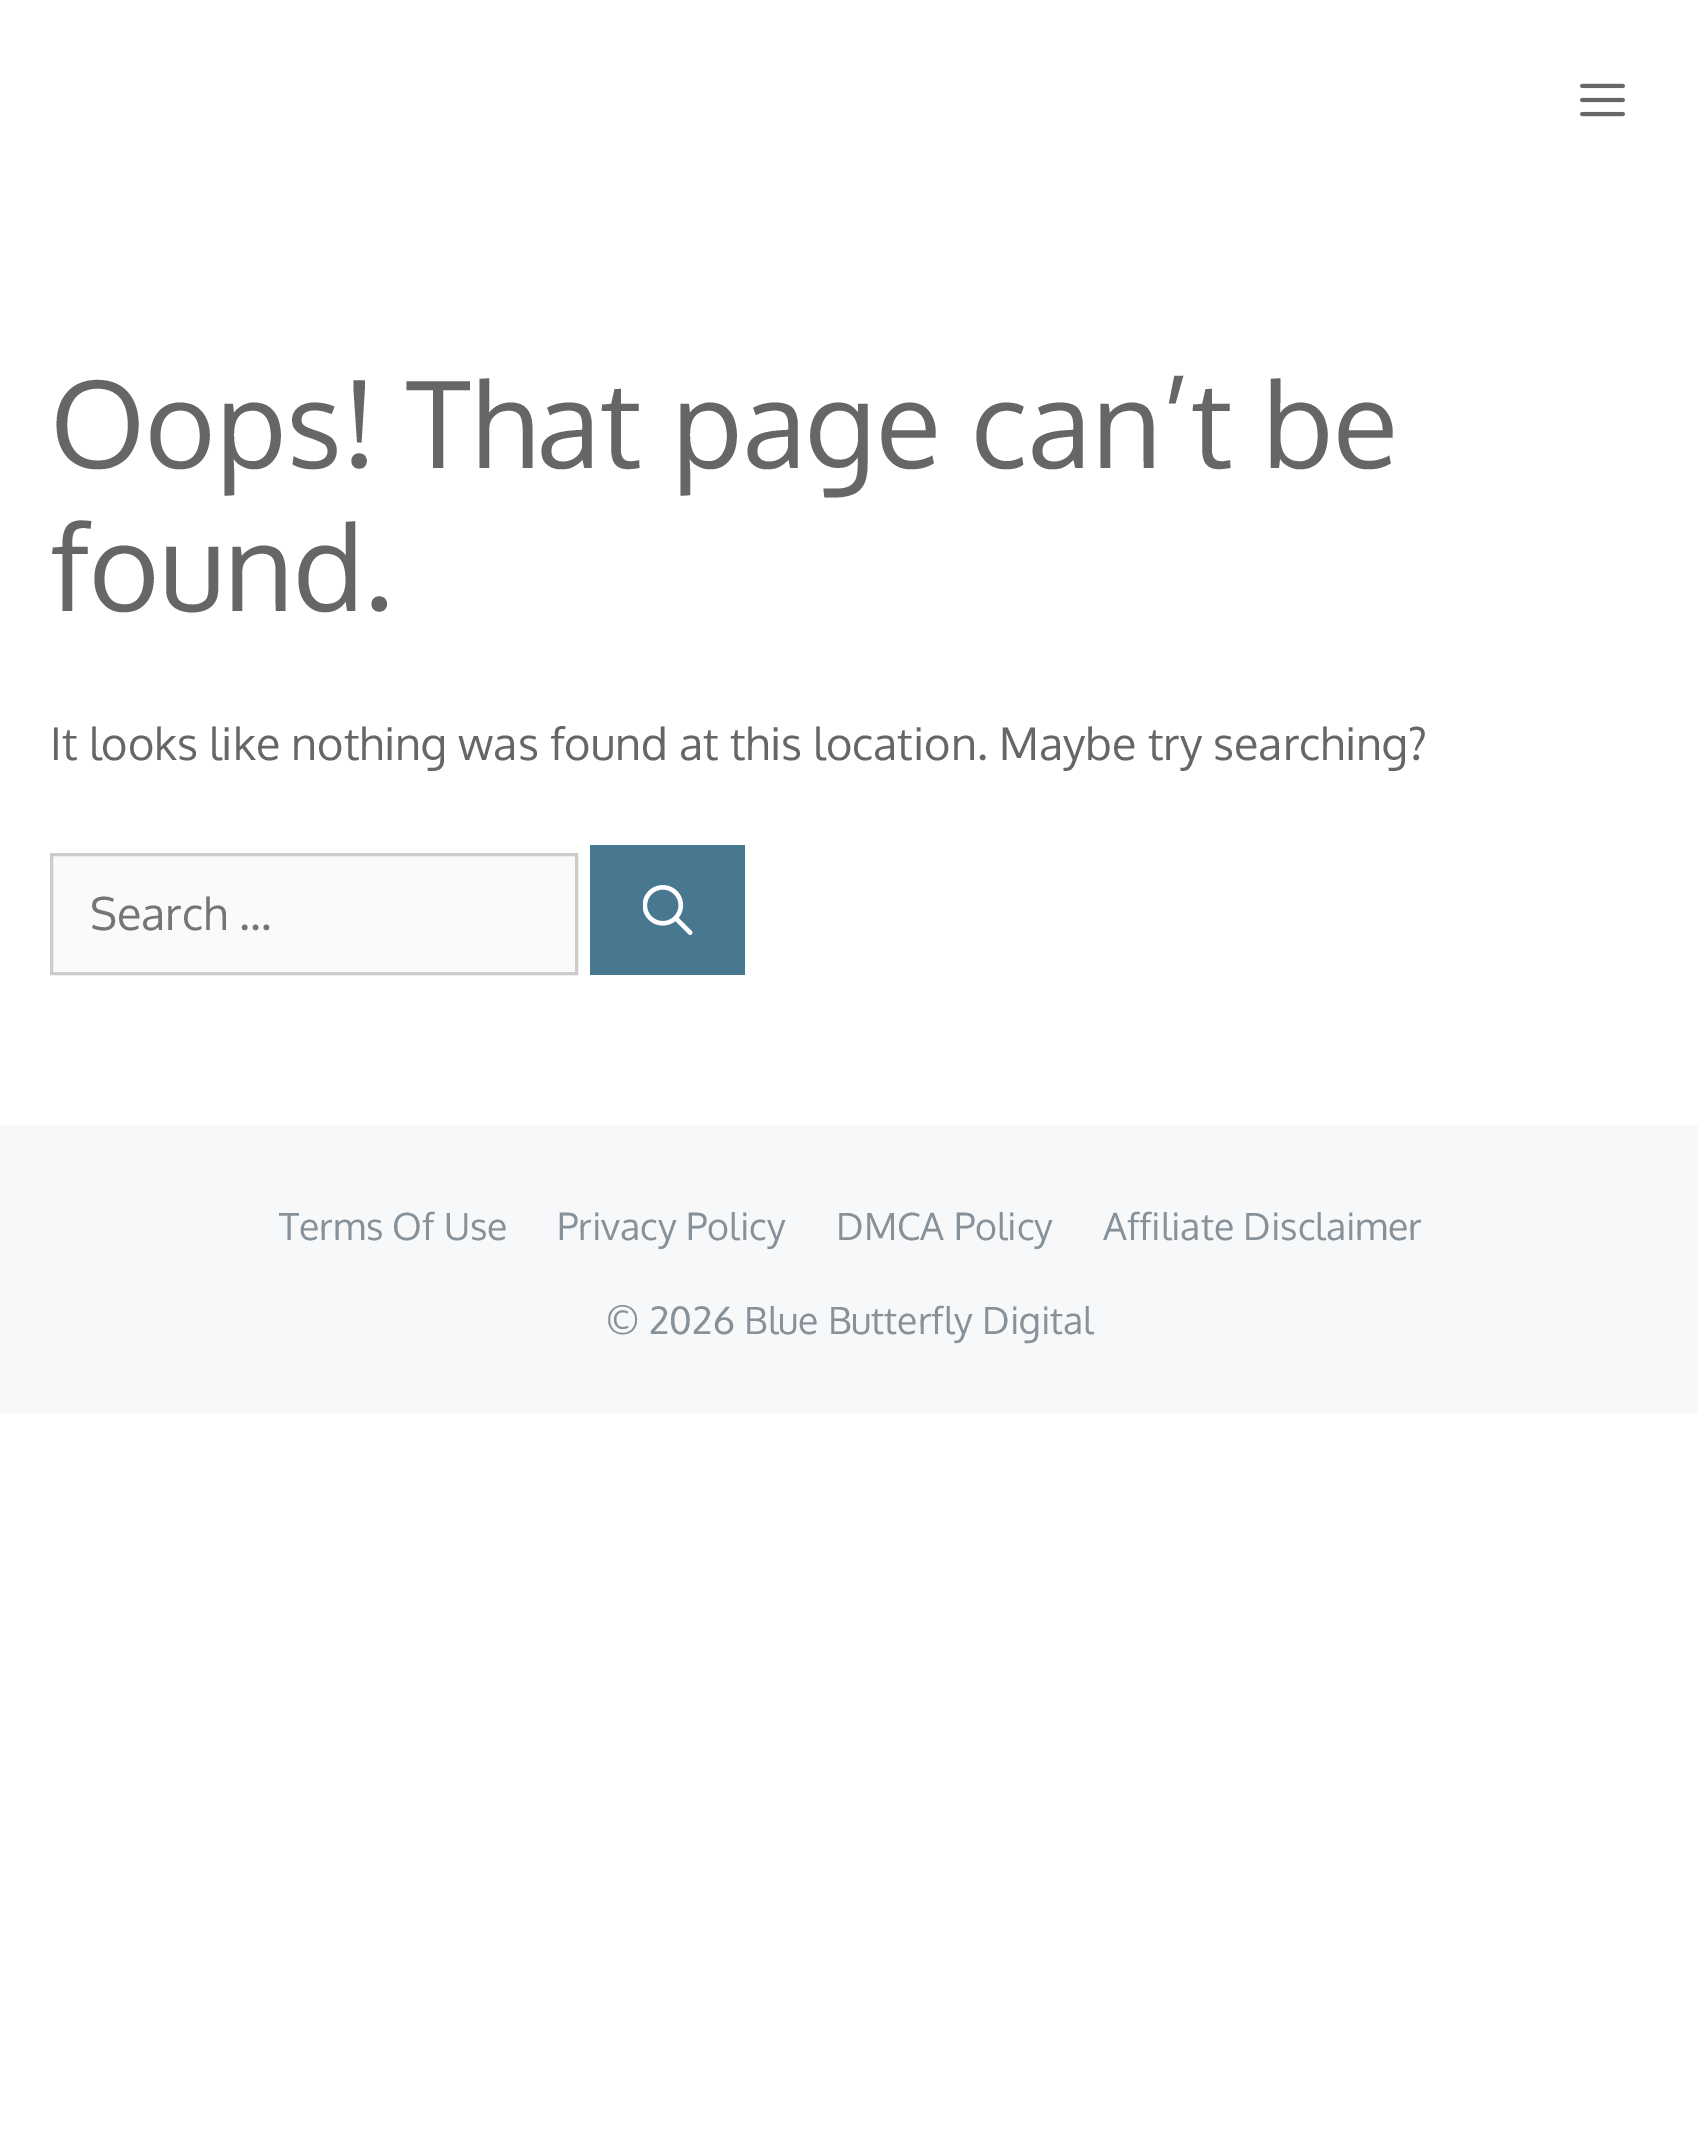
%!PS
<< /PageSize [1698 2147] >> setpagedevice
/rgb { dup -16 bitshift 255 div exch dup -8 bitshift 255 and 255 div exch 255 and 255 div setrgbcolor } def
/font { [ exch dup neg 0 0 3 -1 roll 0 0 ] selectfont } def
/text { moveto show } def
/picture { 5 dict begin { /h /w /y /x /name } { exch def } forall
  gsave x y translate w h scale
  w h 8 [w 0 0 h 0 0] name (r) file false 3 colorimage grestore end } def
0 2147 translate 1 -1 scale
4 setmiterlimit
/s1 { /Oxygen-Regular 120 font 16#666666 rgb } def
/s2 { /Oxygen-Regular 45 font 16#666666 rgb } def
/s3 { /Oxygen-Regular 45 font 16#757575 rgb } def
/s4 { /Oxygen-Regular 37.5 font 16#869199 rgb } def
16#FFFFFF rgb
0 0 1698 2147 rectfill
(pic1.raw) 1580 83 45 34 picture
s1
(Oops! That page can’t be) 50 468 text
(found.) 50 611 text
s2
(It looks like nothing was found at this location. Maybe try searching?) 50 760 text
16#FAFAFA rgb
51.5 854.5 moveto 576.5 854.5 lineto 576.5 973.5 lineto 51.5 973.5 lineto closepath gsave fill grestore
16#CCCCCC rgb
3 setlinewidth
stroke
s3
(Search …) 90 930 text
16#477890 rgb
590 845 155 130 rectfill
(pic2.raw) 643 885 50 50 picture
16#F7F8F9 rgb
0 1125 1698 288 rectfill
s4
(Terms Of Use) 279 1240 text
(Privacy Policy) 557 1240 text
(DMCA Policy) 836 1240 text
(Affiliate Disclaimer) 1103 1240 text
(© 2026 Blue Butterfly Digital) 606 1334 text
showpage
